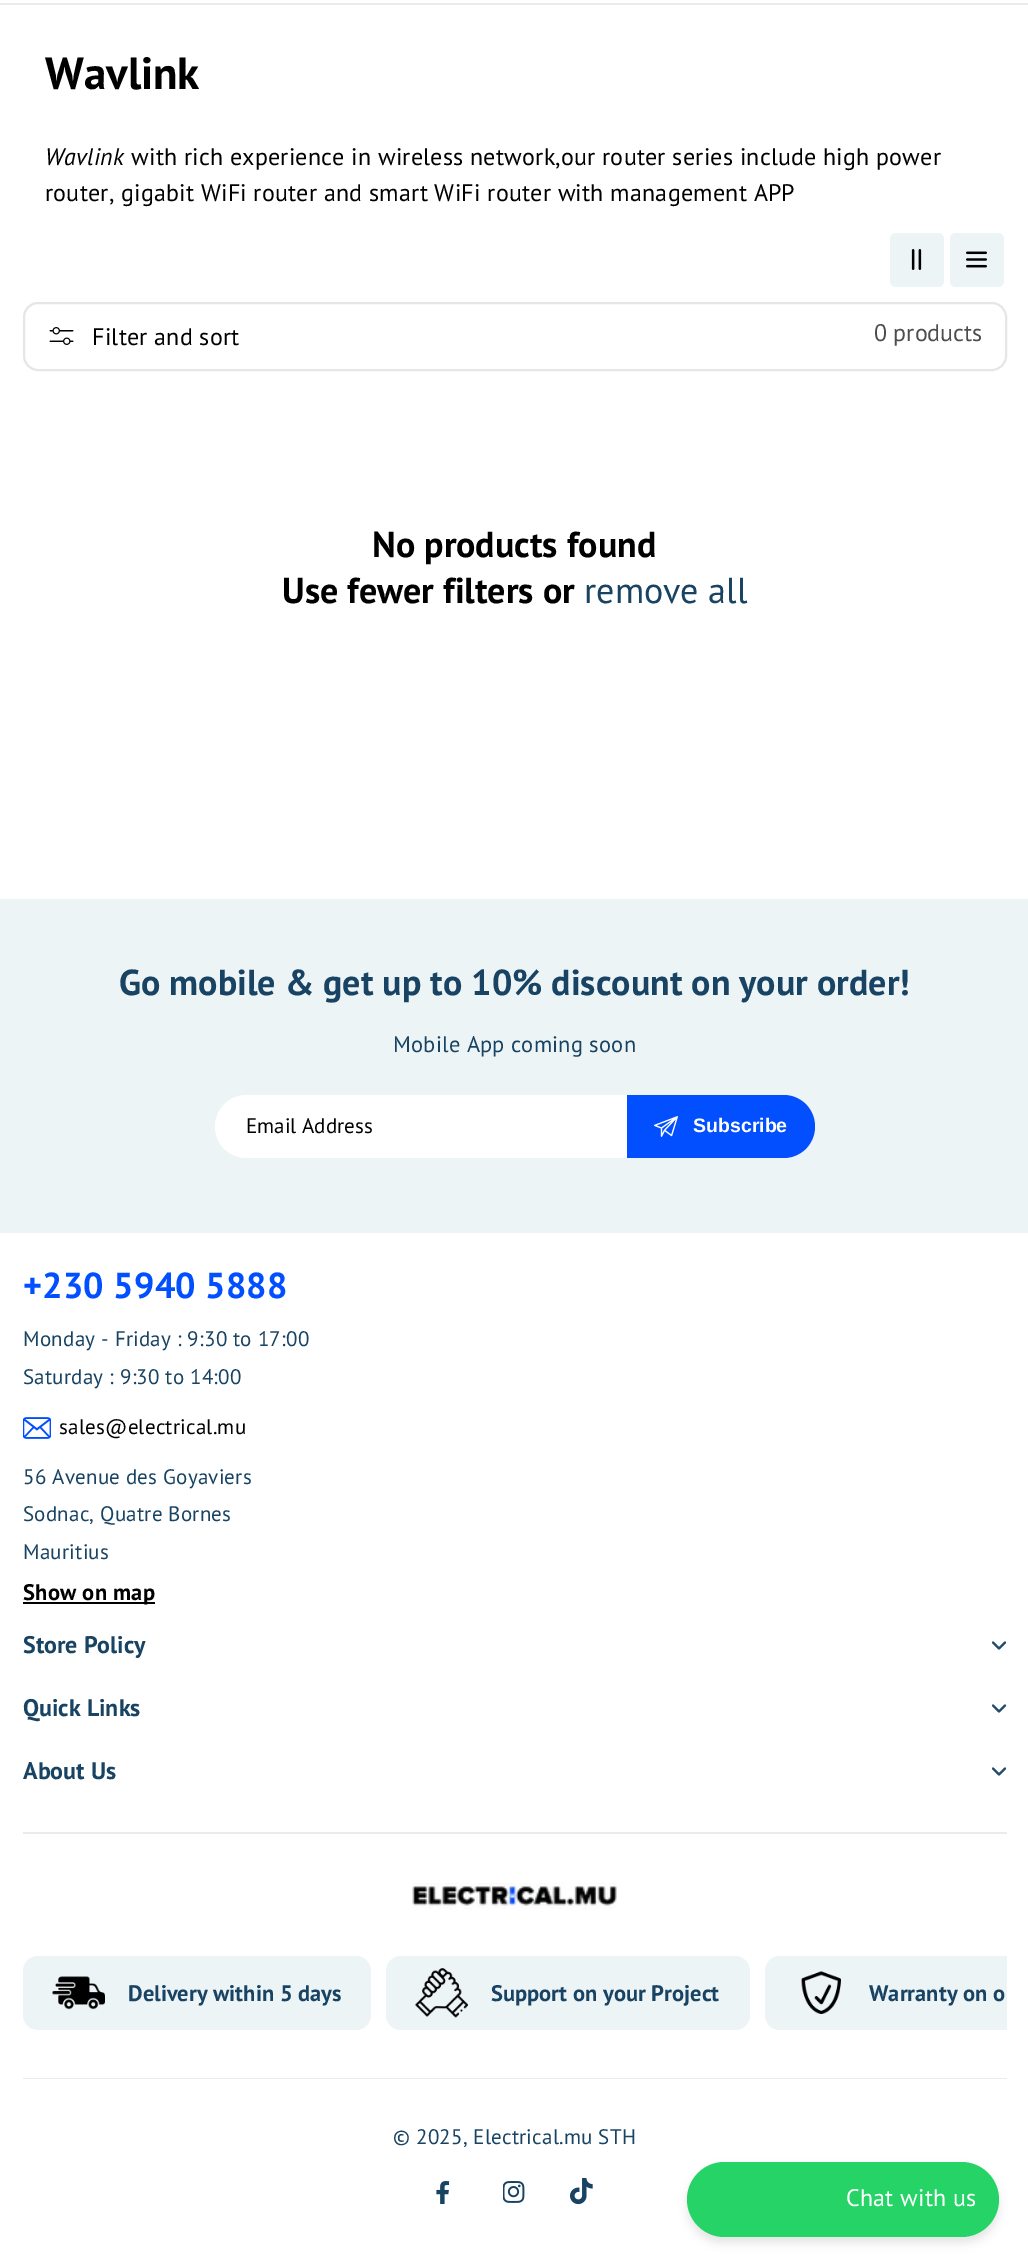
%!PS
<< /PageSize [1028 2266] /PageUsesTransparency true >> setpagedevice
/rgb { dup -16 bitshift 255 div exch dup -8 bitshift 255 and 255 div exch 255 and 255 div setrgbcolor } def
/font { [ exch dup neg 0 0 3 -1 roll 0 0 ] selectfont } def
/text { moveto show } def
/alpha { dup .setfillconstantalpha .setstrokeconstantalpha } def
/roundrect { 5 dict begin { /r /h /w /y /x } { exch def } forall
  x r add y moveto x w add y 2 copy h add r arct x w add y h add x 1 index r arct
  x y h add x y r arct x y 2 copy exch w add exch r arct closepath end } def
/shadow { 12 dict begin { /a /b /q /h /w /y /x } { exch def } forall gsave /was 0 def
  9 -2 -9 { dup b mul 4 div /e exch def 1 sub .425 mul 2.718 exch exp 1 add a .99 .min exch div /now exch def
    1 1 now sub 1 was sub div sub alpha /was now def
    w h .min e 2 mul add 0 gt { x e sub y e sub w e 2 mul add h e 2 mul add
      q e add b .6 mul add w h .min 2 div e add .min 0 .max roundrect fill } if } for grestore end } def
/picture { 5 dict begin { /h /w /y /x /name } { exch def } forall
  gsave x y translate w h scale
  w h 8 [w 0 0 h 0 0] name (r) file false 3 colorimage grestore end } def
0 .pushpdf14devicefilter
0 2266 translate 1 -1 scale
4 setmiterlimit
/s1 { /PTSans-Bold 45 font 16#000000 rgb } def
/s2 { /PTSans-Regular 24 font 16#4D4D4D rgb } def
/s3 { /PTSans-Bold 36 font 16#000000 rgb } def
/s4 { /PTSans-Regular 36 font 16#184363 rgb } def
/s5 { /PTSans-Bold 36 font 16#184363 rgb } def
/s6 { /PTSans-Regular 21 font 16#000000 rgb } def
/s7 { /LiberationSans-Bold 19.5 font 16#FFFFFF rgb } def
/s8 { /PTSans-Bold 24 font 16#184363 rgb } def
/s9 { /PTSans-Bold 22.5 font 16#184363 rgb } def
16#FFFFFF rgb
0 0 1028 2266 rectfill
16#E9EBED rgb
0 3 1028 2 rectfill
s1
(Wavlink) 45 89 text
/PTSans-Italic 24 font
45 165 moveto 0.22 0 (Wavlink) ashow
/PTSans-Regular 24 font
131 165 moveto 0.22 0 (with rich experience in wireless network,our router series include high power) ashow
45 201 moveto 0.22 0 (router, gigabit WiFi router and smart WiFi router with management APP) ashow
16#EDF4F6 rgb
890 233 54 54 6 roundrect fill
(pic1.raw) 911 249 11 21 picture
950 233 54 54 6 roundrect fill
(pic2.raw) 966 251 21 17 picture
16#E6E6E6 rgb
2 setlinewidth
24 303 982 67 14 roundrect stroke
(pic3.raw) 49 327 25 18 picture
16#000000 rgb
92 345 moveto 0.22 0 (Filter and sort) ashow
s2
(0 products) 874 341 text
s3
(No products found) 372 557 text
(Use fewer filters or) 282 603 text
s4
(remove all) 584 603 text
16#EDF4F6 rgb
0 899 1028 334 rectfill
s5
(Go mobile & get up to 10% discount on your order!) 119 995 text
/PTSans-Regular 22.5 font
393 1052 moveto 0.22 0 (Mobile App coming soon) ashow
16#FFFFFF rgb
215 1095 600 63 31.5 roundrect fill
s6
(Email Address) 246 1133 text
16#014FFF rgb
627 1095 moveto 783.5 1095 lineto 801 1095 815 1109 815 1126.5 curveto 815 1144 801 1158 783.5 1158 curveto 627 1158 lineto closepath fill
(pic4.raw) 654 1116 24 21 picture
s7
(Subscribe) 693 1132 text
/PTSans-Bold 36 font
16#014FFF rgb
23 1298 moveto 0.22 0 (+230 5940 5888) ashow
/PTSans-Regular 21 font
16#184363 rgb
23 1346 moveto 0.22 0 (Monday - Friday : 9:30 to 17:00) ashow
23 1384 moveto 0.22 0 (Saturday : 9:30 to 14:00) ashow
(pic5.raw) 23 1417 28 22 picture
16#000000 rgb
59 1434 moveto 0.22 0 (sales@electrical.mu) ashow
16#184363 rgb
23 1484 moveto 0.22 0 (56 Avenue des Goyaviers) ashow
23 1521 moveto 0.22 0 (Sodnac, Quatre Bornes) ashow
23 1559 moveto 0.22 0 (Mauritius) ashow
16#000000 rgb
23 1602 132 2 rectfill
/PTSans-Bold 22.5 font
23 1600 moveto 0.22 0 (Show on map) ashow
s8
(Store Policy) 23 1653 text
(pic6.raw) 992 1641 15 9 picture
(Quick Links) 23 1716 text
(pic6.raw) 992 1704 15 9 picture
(About Us) 23 1779 text
(pic6.raw) 992 1767 15 9 picture
16#E8ECEF rgb
23 1832 984 2 rectfill
23 2078 984 1 rectfill
(pic7.raw) 412 1882 205 28 picture
16#EDF4F6 rgb
23 1956 348 74 15 roundrect fill
(pic8.raw) 52 1976 53 34 picture
s9
(Delivery within 5 days) 128 2001 text
16#EDF4F6 rgb
386 1956 364 74 15 roundrect fill
(pic9.raw) 415 1968 53 50 picture
s9
(Support on your Project) 491 2001 text
16#EDF4F6 rgb
780 1956 moveto 1007 1956 lineto 1007 2030 lineto 780 2030 lineto 771.5 2030 765 2023.5 765 2015 curveto 765 1971 lineto 765 1962.5 771.5 1956 780 1956 curveto closepath fill
(pic10.raw) 801 1971 40 43 picture
s9
(Warranty on o) 869 2001 text
/PTSans-Regular 21 font
393 2144 moveto 0.22 0 (© 2025, Electrical.mu STH) ashow
(pic11.raw) 436 2181 14 23 picture
(pic12.raw) 503 2181 22 22 picture
(pic13.raw) 570 2178 23 27 picture
16#000000 rgb
687 2168 312 75 37.5 4.5 0.1 shadow
16#25D366 rgb
687 2162 312 75 37.5 roundrect fill
/PTSans-Regular 24 font
16#FFFFFF rgb
846 2206 moveto 0.22 0 (Chat with us) ashow
.poppdf14devicefilter showpage
